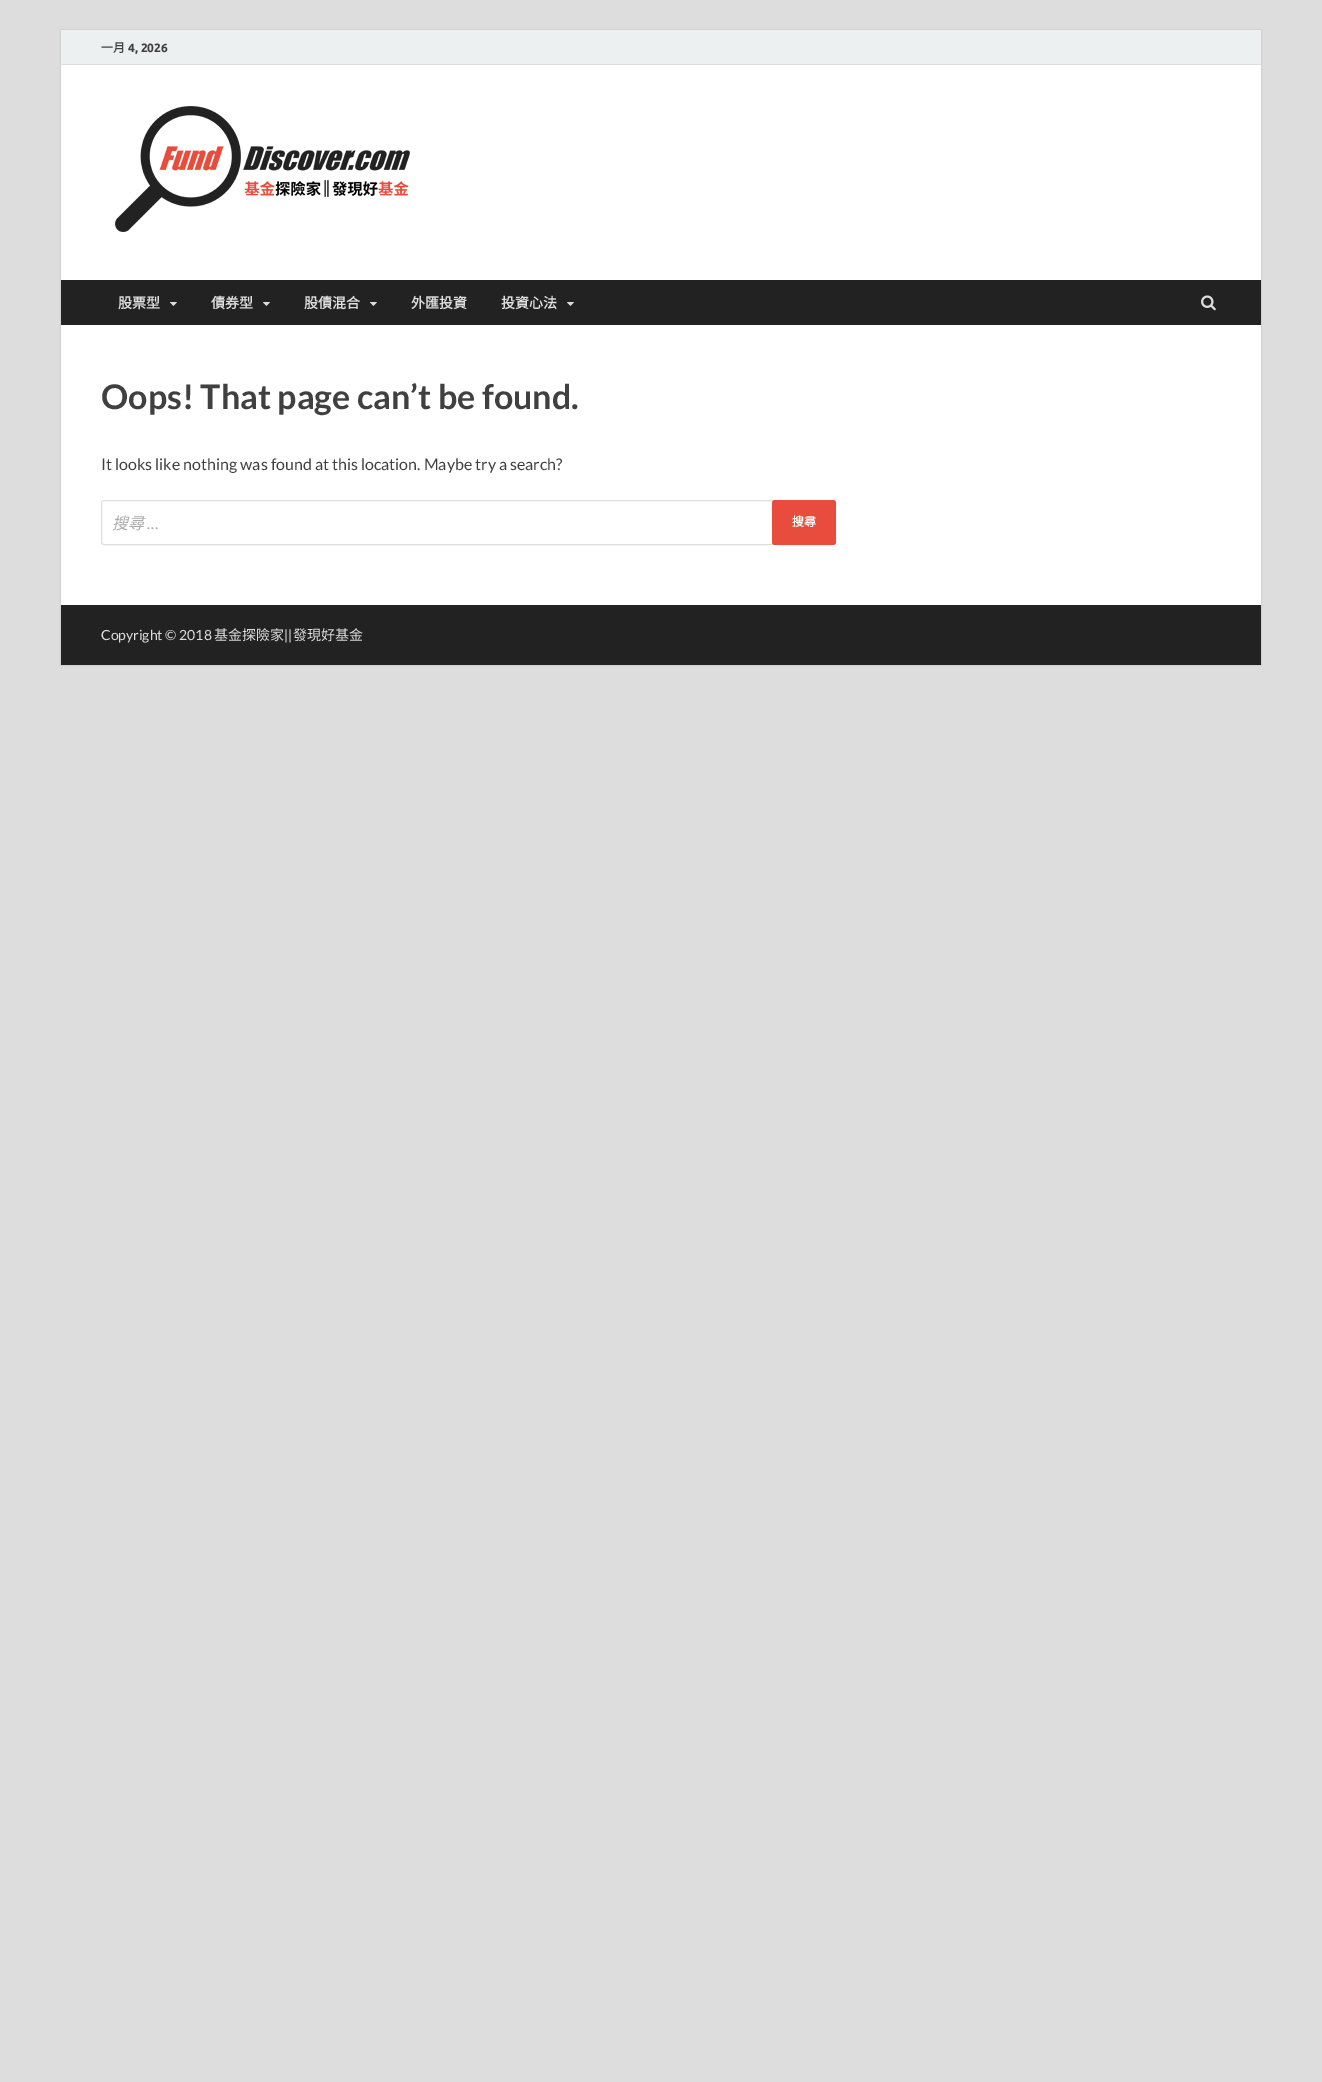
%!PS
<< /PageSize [1322 2082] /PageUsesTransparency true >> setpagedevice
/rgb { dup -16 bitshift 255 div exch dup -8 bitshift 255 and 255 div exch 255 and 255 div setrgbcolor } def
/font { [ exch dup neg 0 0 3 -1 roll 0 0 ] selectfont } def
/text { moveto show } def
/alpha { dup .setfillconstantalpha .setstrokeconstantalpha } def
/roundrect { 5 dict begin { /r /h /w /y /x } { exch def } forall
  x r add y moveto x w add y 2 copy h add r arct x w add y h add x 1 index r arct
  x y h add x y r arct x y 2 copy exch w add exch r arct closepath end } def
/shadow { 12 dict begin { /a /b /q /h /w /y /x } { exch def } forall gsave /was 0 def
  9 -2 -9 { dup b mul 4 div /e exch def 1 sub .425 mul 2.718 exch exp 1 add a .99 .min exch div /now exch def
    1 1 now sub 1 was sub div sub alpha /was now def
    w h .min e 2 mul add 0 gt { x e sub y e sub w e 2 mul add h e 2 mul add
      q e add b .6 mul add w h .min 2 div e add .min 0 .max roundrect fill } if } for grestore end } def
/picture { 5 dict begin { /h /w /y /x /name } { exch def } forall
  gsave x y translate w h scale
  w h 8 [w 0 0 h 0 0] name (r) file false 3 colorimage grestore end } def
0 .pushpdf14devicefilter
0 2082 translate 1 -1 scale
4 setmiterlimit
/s1 { /NotoSansCJKTC-Bold 12 font 16#404040 rgb } def
/s2 { /Ubuntu-Bold 12 font 16#404040 rgb } def
/s3 { /NotoSansCJKTC-Bold 14 font 16#DDDDDD rgb } def
/s4 { /Lato-Bold 34 font 16#404040 rgb } def
/s5 { /Lato-Regular 16 font 16#404040 rgb } def
/s6 { /NotoSansCJKTC-Italic 16 font 16#AAAAAA rgb } def
/s7 { /Lato-Italic 16 font 16#AAAAAA rgb } def
/s8 { /NotoSansCJKTC-Bold 12 font 16#FFFFFF rgb } def
/s9 { /Lato-Regular 14 font 16#DDDDDD rgb } def
/s10 { /NotoSansCJKTC-Regular 14 font 16#DDDDDD rgb } def
16#DDDDDD rgb
0 0 1322 2082 rectfill
16#BBBBBB rgb
61 30 1200 635 0 1 1 shadow
16#FFFFFF rgb
61 65 1200 540 rectfill
16#ECF0F1 rgb
61 30 1200 34 rectfill
16#DDDDDD rgb
61 64 1200 1 rectfill
s1
(一月) 101 52 text
s2
(4, 2026) 128 52 text
(pic1.raw) 115 106 295 126 picture
16#222222 rgb
61 280 1200 45 rectfill
s3
(股票型) 118 308 text
(pic2.raw) 170 302 7 4 picture
(債券型) 211 308 text
(pic2.raw) 263 302 7 4 picture
(股債混合) 304 308 text
(pic2.raw) 370 302 7 4 picture
(外匯投資) 411 308 text
(投資心法) 501 308 text
(pic2.raw) 567 302 7 4 picture
(pic3.raw) 1201 295 15 16 picture
s4
(Oops! That page can’t be found.) 101 409 text
s5
(It looks like nothing was found at this location. Maybe try a search?) 101 470 text
16#DDDDDD rgb
101.5 500.5 734 44 2.5 roundrect stroke
s6
(搜尋) 112 529 text
s7
(…) 147 529 text
16#E74C3C rgb
772 500 64 45 3 roundrect fill
s8
(搜尋) 792 526 text
16#222222 rgb
61 605 1200 60 rectfill
s9
(Copyright © 2018) 101 640 text
s10
(基金探險家) 214 640 text
s9
(||) 284 640 text
s10
(發現好基金) 293 640 text
.poppdf14devicefilter showpage
